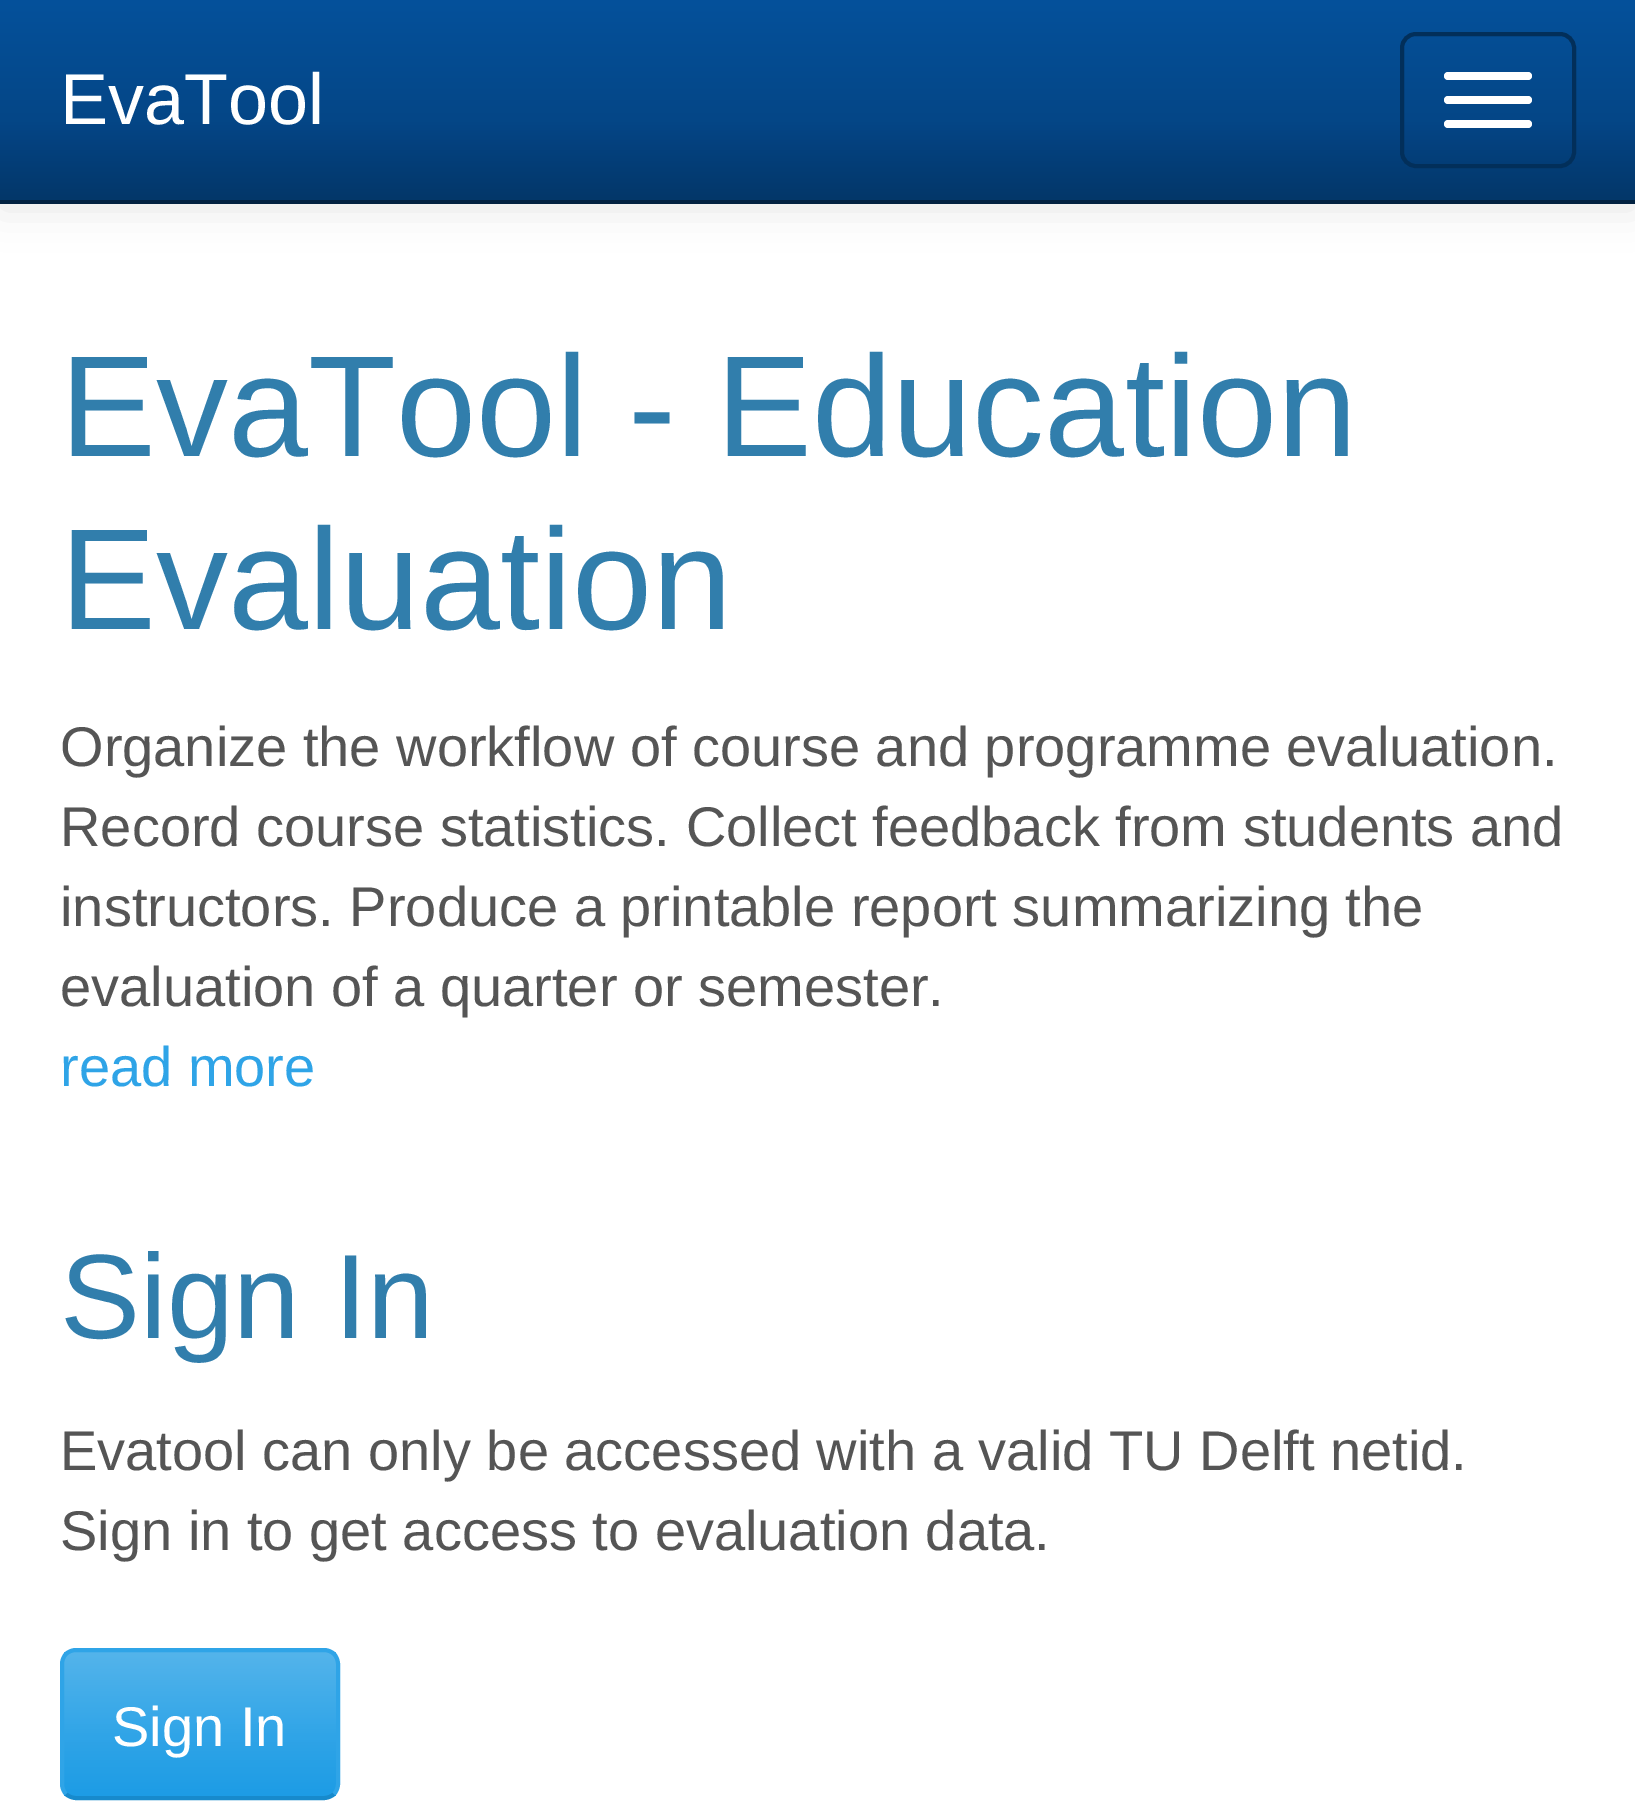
%!PS
<< /PageSize [1635 1819] /PageUsesTransparency true >> setpagedevice
/rgb { dup -16 bitshift 255 div exch dup -8 bitshift 255 and 255 div exch 255 and 255 div setrgbcolor } def
/font { [ exch dup neg 0 0 3 -1 roll 0 0 ] selectfont } def
/text { moveto show } def
/alpha { dup .setfillconstantalpha .setstrokeconstantalpha } def
/roundrect { 5 dict begin { /r /h /w /y /x } { exch def } forall
  x r add y moveto x w add y 2 copy h add r arct x w add y h add x 1 index r arct
  x y h add x y r arct x y 2 copy exch w add exch r arct closepath end } def
/shadow { 12 dict begin { /a /b /q /h /w /y /x } { exch def } forall gsave /was 0 def
  9 -2 -9 { dup b mul 4 div /e exch def 1 sub .425 mul 2.718 exch exp 1 add a .99 .min exch div /now exch def
    1 1 now sub 1 was sub div sub alpha /was now def
    w h .min e 2 mul add 0 gt { x e sub y e sub w e 2 mul add h e 2 mul add
      q e add b .6 mul add w h .min 2 div e add .min 0 .max roundrect fill } if } for grestore end } def
0 .pushpdf14devicefilter
0 1819 translate 1 -1 scale
4 setmiterlimit
/s1 { /LiberationSans-Regular 72 font 16#FFFFFF rgb } def
/s2 { /LiberationSans-Regular 144 font 16#317EAC rgb } def
/s3 { /LiberationSans-Regular 56 font 16#555555 rgb } def
/s4 { /LiberationSans-Regular 56 font 16#2FA4E7 rgb } def
/s5 { /LiberationSans-Regular 120 font 16#317EAC rgb } def
/s6 { /LiberationSans-Regular 56 font 16#FFFFFF rgb } def
16#FFFFFF rgb
0 0 1635 1819 rectfill
16#000000 rgb
0 4 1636 204 0 20 0.1 shadow
gsave 0 0 moveto 1635 0 lineto 1635 200 lineto 0 200 lineto closepath clip newpath
<< /ShadingType 2 /ColorSpace /DeviceRGB /Coords [818 0 818 200] /Extend [true true] /Function << /FunctionType 3 /Domain [0 1] /Functions [<< /FunctionType 2 /Domain [0 1] /C0 [0.016 0.318 0.608] /C1 [0.016 0.275 0.529] /N 1 >> << /FunctionType 2 /Domain [0 1] /C0 [0.016 0.275 0.529] /C1 [0.012 0.216 0.412] /N 1 >>] /Bounds [0.6] /Encode [0 1 0 1] >> >> shfill grestore
16#022241 rgb
0 200 1635 4 rectfill
s1
(EvaTool) 60 124 text
16#022F5A rgb
4 setlinewidth
1402 34 172 132 14 roundrect stroke
16#FFFFFF rgb
1444 72 88 8 4 roundrect fill
1444 96 88 8 4 roundrect fill
1444 120 88 8 4 roundrect fill
s2
(EvaTool - Education) 60 456 text
(Evaluation) 60 629 text
s3
(Organize the workflow of course and programme evaluation.) 60 766 text
(Record course statistics. Collect feedback from students and) 60 846 text
(instructors. Produce a printable report summarizing the) 60 926 text
(evaluation of a quarter or semester.) 60 1006 text
s4
(read more) 60 1086 text
s5
(Sign In) 60 1338 text
s3
(Evatool can only be accessed with a valid TU Delft netid.) 60 1470 text
(Sign in to get access to evaluation data.) 60 1550 text
gsave
60 1648 280 152 16 roundrect clip newpath
gsave 64 1652 moveto 336 1652 lineto 336 1796 lineto 64 1796 lineto closepath clip newpath
<< /ShadingType 2 /ColorSpace /DeviceRGB /Coords [200 1652 200 1796] /Extend [true true] /Function << /FunctionType 3 /Domain [0 1] /Functions [<< /FunctionType 2 /Domain [0 1] /C0 [0.329 0.706 0.922] /C1 [0.184 0.643 0.906] /N 1 >> << /FunctionType 2 /Domain [0 1] /C0 [0.184 0.643 0.906] /C1 [0.114 0.612 0.898] /N 1 >>] /Bounds [0.6] /Encode [0 1 0 1] >> >> shfill grestore
grestore
16#178ACC rgb
334 1794 moveto 331.5 1796.5 327.5 1798 324 1798 curveto 76 1798 lineto 72.5 1798 68.5 1796.5 66 1794 curveto stroke
16#2FA4E7 rgb
66 1794 moveto 63.5 1791.5 62 1787.5 62 1784 curveto 62 1664 lineto 62 1660.5 63.5 1656.5 66 1654 curveto 68.5 1651.5 72.5 1650 76 1650 curveto 324 1650 lineto 327.5 1650 331.5 1651.5 334 1654 curveto 336.5 1656.5 338 1660.5 338 1664 curveto 338 1784 lineto 338 1787.5 336.5 1791.5 334 1794 curveto stroke
s6
(Sign In) 112 1746 text
.poppdf14devicefilter showpage
